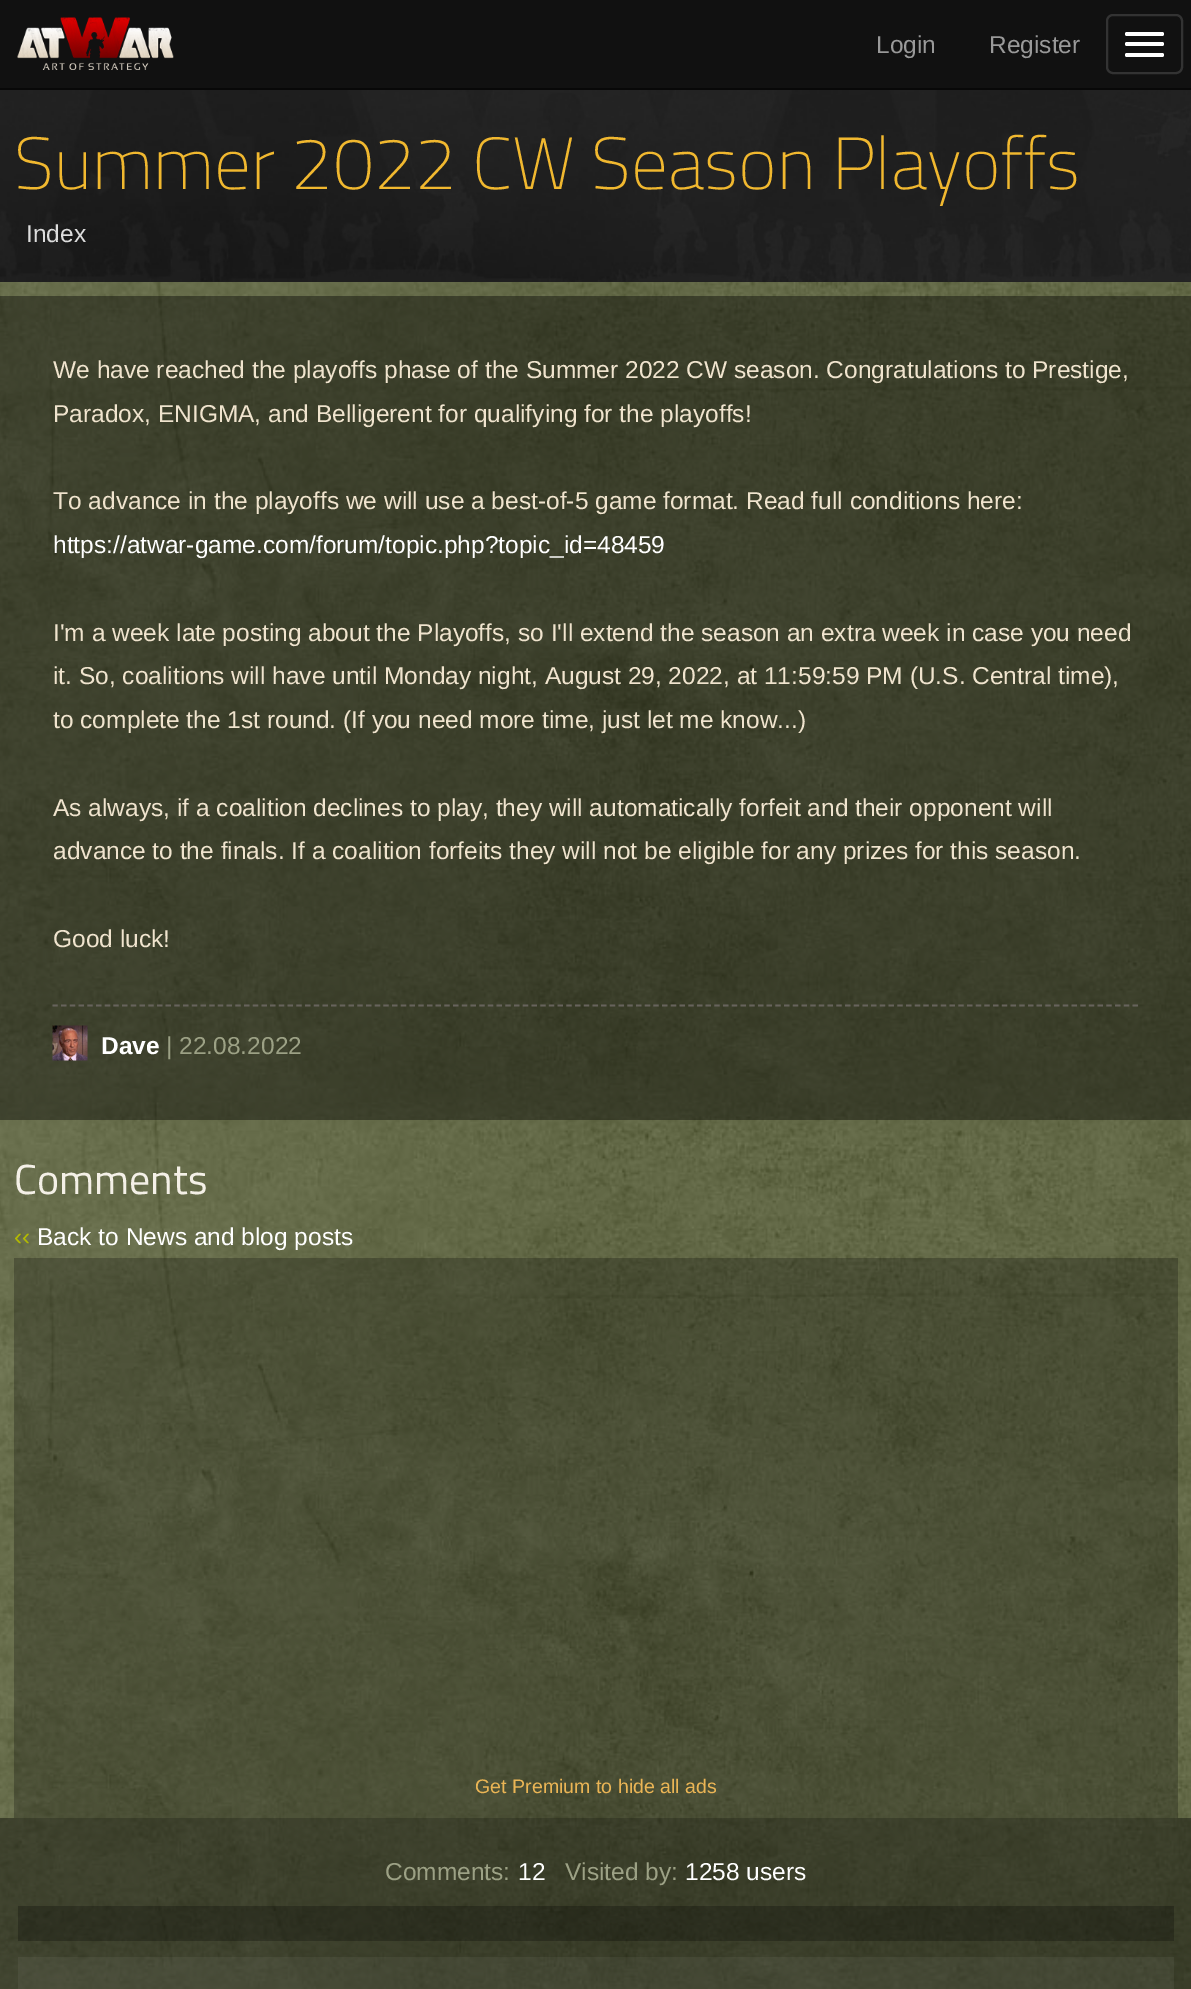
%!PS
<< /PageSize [1191 1989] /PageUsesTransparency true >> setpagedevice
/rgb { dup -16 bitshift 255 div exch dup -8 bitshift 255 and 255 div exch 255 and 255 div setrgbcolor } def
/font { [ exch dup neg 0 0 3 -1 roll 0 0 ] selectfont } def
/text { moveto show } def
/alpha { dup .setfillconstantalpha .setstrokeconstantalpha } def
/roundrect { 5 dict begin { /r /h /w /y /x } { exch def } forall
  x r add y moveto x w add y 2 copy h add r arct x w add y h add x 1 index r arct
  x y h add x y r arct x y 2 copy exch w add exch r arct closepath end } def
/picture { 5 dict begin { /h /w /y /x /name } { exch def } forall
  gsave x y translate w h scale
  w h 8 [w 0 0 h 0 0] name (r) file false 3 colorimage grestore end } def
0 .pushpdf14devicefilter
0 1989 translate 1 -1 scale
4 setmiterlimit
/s1 { /LiberationSans-Regular 24.5 font 16#999999 rgb } def
/s2 { /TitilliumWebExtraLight-ExtraLight 73.5 font 16#F1B82F rgb } def
/s3 { /LiberationSans-Regular 24.5 font 16#DDDDDD rgb } def
/s4 { /LiberationSans-Regular 24.5 font 16#F0E4CE rgb } def
/s5 { /LiberationSans-Regular 24.5 font 16#FFFFFF rgb } def
/s6 { /LiberationSans-Bold 24.5 font 16#FFFFFF rgb } def
/s7 { /LiberationSans-Regular 24.5 font 16#9CA185 rgb } def
/s8 { /TitilliumWeb-Regular 42 font 16#F4F0E7 rgb } def
/s9 { /LiberationSans-Regular 24.5 font 16#B3BA00 rgb } def
/s10 { /LiberationSans-Regular 19.6 font 16#EBB555 rgb } def
16#FFFFFF rgb
0 0 1191 1989 rectfill
(pic1.raw) 0 281 1191 1708 picture
16#111111 rgb
0 0 1191 88 rectfill
16#080808 rgb
0 88 1191 2 rectfill
(pic2.raw) 17 17 157 53 picture
s1
(Login) 876 53 text
(Register) 989 53 text
16#333333 rgb
2 setlinewidth
1107 15 75 58 6 roundrect stroke
16#FFFFFF rgb
1125 32 39 4 2 roundrect fill
1125 42 39 4 2 roundrect fill
1125 53 39 4 2 roundrect fill
(pic3.raw) 0 90 1191 192 picture
s2
(Summer 2022 CW Season Playoffs) 14 189 text
s3
(Index) 26 242 text
0.4 alpha
16#000000 rgb
0 296 1191 824 rectfill
1 alpha
s4
(We have reached the playoffs phase of the Summer 2022 CW season. Congratulations to Prestige,) 53 378 text
(Paradox, ENIGMA, and Belligerent for qualifying for the playoffs!) 53 422 text
(To advance in the playoffs we will use a best-of-5 game format. Read full conditions here:) 53 509 text
s5
(https://atwar-game.com/forum/topic.php?topic_id=48459) 53 553 text
s4
(I'm a week late posting about the Playoffs, so I'll extend the season an extra week in case you need) 53 641 text
(it. So, coalitions will have until Monday night, August 29, 2022, at 11:59:59 PM \(U.S. Central time\),) 53 684 text
(to complete the 1st round. \(If you need more time, just let me know...\)) 53 728 text
(As always, if a coalition declines to play, they will automatically forfeit and their opponent will) 53 816 text
(advance to the finals. If a coalition forfeits they will not be eligible for any prizes for this season.) 53 859 text
(Good luck!) 53 947 text
16#67635C rgb
1.8 setlinewidth
[5.25 3.46] 0 setdash
52.5 1005.5 moveto 1139 1005.5 lineto stroke
(pic4.raw) 52 1025 36 36 picture
s6
(Dave) 101 1054 text
s7
(| 22.08.2022) 166 1054 text
s8
(Comments) 14 1194 text
s9
(‹‹) 14 1245 text
s5
(Back to News and blog posts) 37 1245 text
0.25 alpha
16#000000 rgb
14 1258 1164 560 rectfill
1 alpha
s10
(Get Premium to hide all ads) 475 1793 text
0.4 alpha
16#000000 rgb
0 1818 1191 171 rectfill
1 alpha
s7
(Comments:) 385 1880 text
s5
(12) 518 1880 text
s7
(Visited by:) 565 1880 text
s5
(1258 users) 685 1880 text
0.25 alpha
16#000000 rgb
18 1906 1156 35 rectfill
0.05 alpha
16#FFFFFF rgb
18 1957 1156 32 rectfill
.poppdf14devicefilter showpage
